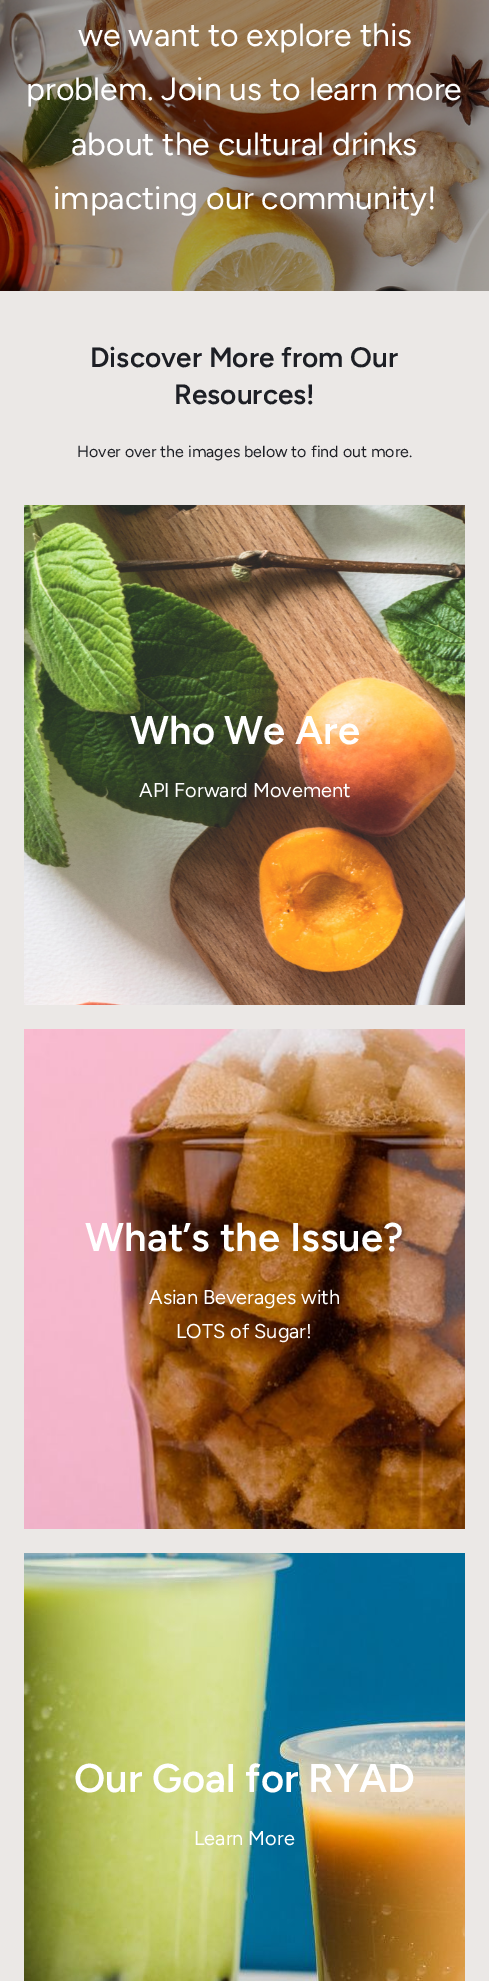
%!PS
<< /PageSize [489 1981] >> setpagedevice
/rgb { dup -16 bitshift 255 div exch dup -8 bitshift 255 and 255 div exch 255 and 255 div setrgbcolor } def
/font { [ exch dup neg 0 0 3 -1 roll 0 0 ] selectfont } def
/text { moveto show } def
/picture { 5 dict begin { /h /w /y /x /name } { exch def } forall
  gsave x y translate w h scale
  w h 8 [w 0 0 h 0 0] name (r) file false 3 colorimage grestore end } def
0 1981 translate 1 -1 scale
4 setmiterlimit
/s1 { /Figtree-Regular 32 font 16#FFFFFF rgb } def
/s2 { /Figtree-SemiBold 28 font 16#1D1F25 rgb } def
/s3 { /Figtree-Regular 16 font 16#1D1F25 rgb } def
/s4 { /Figtree-SemiBold 40 font 16#FFFFFF rgb } def
/s5 { /Figtree-Regular 20 font 16#FFFFFF rgb } def
16#EBE8E6 rgb
0 0 489 1981 rectfill
(pic1.raw) 0 0 489 291 picture
s1
(we want to explore this) 78 46 text
(problem. Join us to learn more) 26 100 text
(about the cultural drinks) 71 155 text
(impacting our community!) 53 209 text
s2
(Discover More from Our) 90 367 text
(Resources!) 174 404 text
s3
(Hover over the images below to find out more.) 77 457 text
(pic2.raw) 24 505 441 500 picture
s4
(Who We Are) 130 744 text
s5
(API Forward Movement) 139 797 text
(pic3.raw) 24 1029 441 500 picture
s4
(What’s the Issue?) 85 1251 text
s5
(Asian Beverages with) 149 1304 text
(LOTS of Sugar!) 176 1338 text
(pic4.raw) 24 1553 441 428 picture
s4
(Our Goal for RYAD) 74 1792 text
s5
(Learn More) 194 1845 text
showpage
